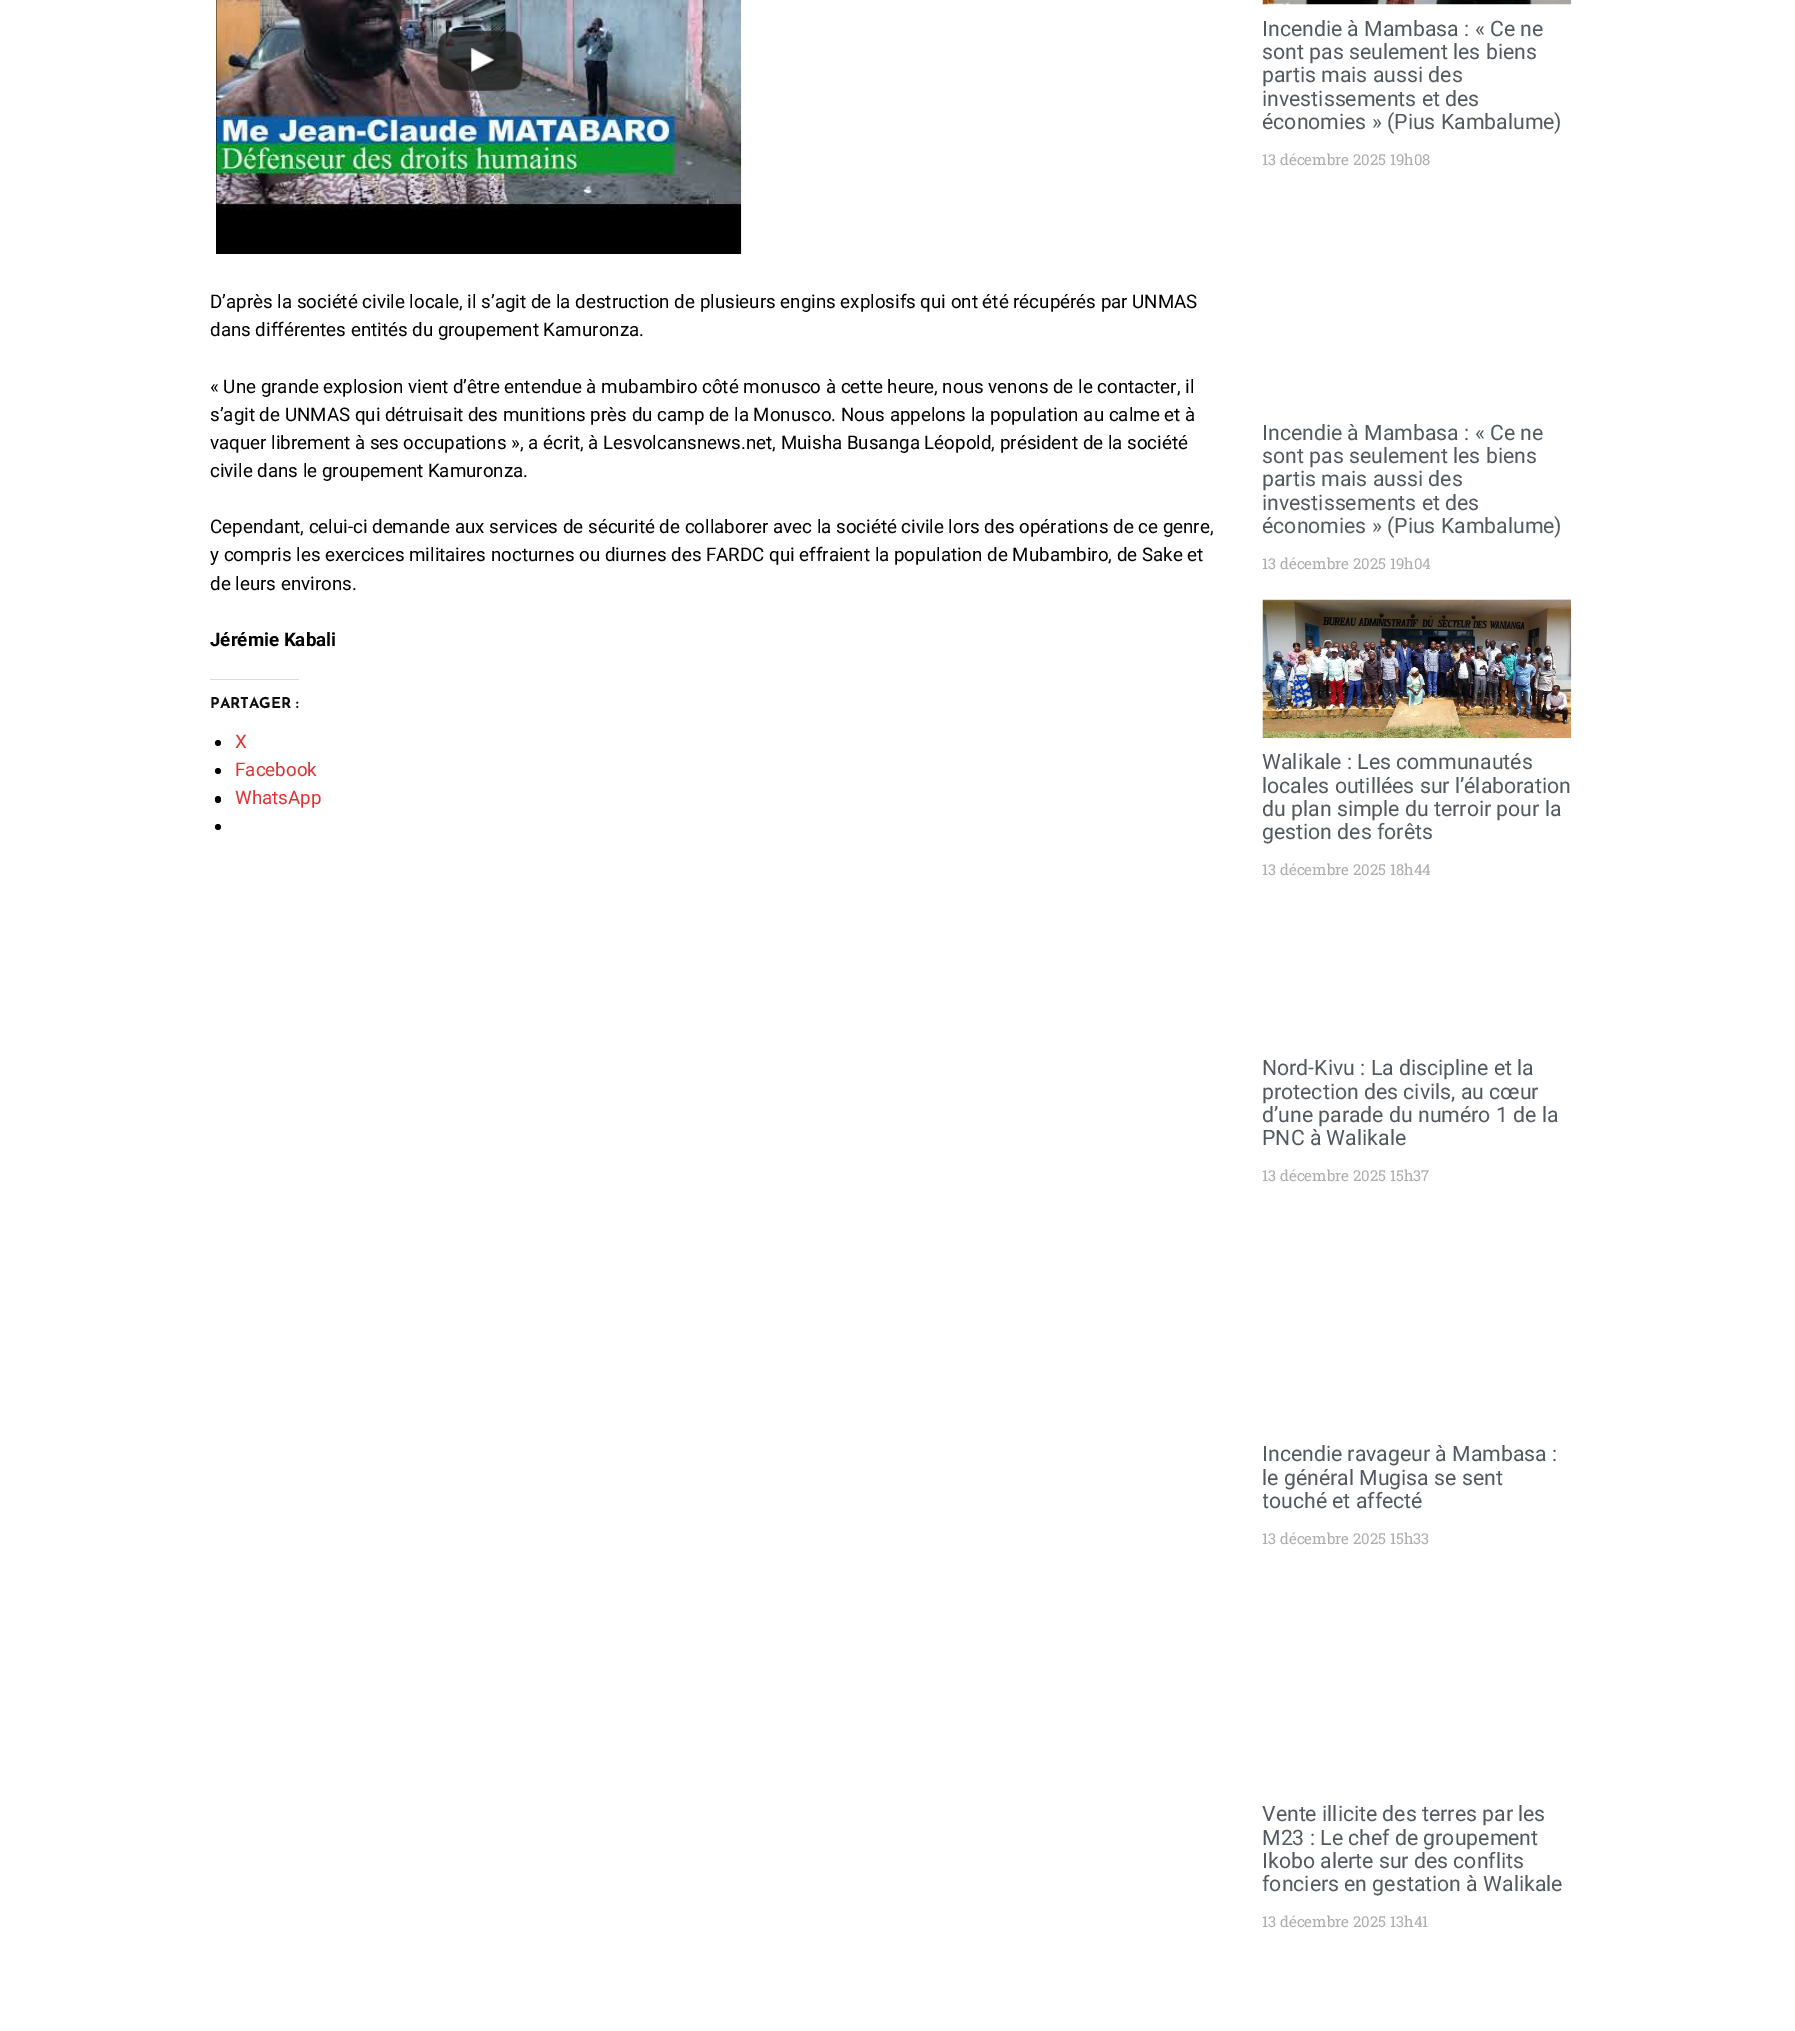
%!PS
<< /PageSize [1795 2031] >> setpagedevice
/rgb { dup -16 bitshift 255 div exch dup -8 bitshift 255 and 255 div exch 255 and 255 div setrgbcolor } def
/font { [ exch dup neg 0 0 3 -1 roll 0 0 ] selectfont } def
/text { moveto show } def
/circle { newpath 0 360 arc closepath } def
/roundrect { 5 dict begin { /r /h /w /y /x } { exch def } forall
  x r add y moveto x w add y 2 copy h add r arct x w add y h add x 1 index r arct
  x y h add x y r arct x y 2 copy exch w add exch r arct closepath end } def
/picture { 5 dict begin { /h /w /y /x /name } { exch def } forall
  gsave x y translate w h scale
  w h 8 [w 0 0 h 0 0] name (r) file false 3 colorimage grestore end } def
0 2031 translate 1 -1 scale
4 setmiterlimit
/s1 { /Roboto-Regular 18.75 font 16#000000 rgb } def
/s2 { /Roboto-Bold 18.75 font 16#000000 rgb } def
/s3 { /JosefinSans-Bold 15 font 16#0F0D0E rgb } def
/s4 { /Roboto-Regular 18.75 font 16#DD3333 rgb } def
/s5 { /Roboto-Regular 21.25 font 16#54595F rgb } def
/s6 { /RobotoSlab-Regular 15 font 16#ADADAD rgb } def
16#FFFFFF rgb
0 0 1795 2031 rectfill
16#000000 rgb
216 0 525 254 rectfill
(pic1.raw) 216 0 526 253 picture
(pic2.raw) 437 30 86 61 picture
s1
(D’après la société civile locale, il s’agit de la destruction de plusieurs engins explosifs qui ont été récupérés par UNMAS) 210 308 text
(dans différentes entités du groupement Kamuronza.) 210 336 text
(« Une grande explosion vient d’être entendue à mubambiro côté monusco à cette heure, nous venons de le contacter, il) 210 393 text
(s’agit de UNMAS qui détruisait des munitions près du camp de la Monusco. Nous appelons la population au calme et à) 210 421 text
(vaquer librement à ses occupations », a écrit, à Lesvolcansnews.net, Muisha Busanga Léopold, président de la société) 210 449 text
(civile dans le groupement Kamuronza.) 210 477 text
(Cependant, celui-ci demande aux services de sécurité de collaborer avec la société civile lors des opérations de ce genre,) 210 533 text
(y compris les exercices militaires nocturnes ou diurnes des FARDC qui effraient la population de Mubambiro, de Sake et) 210 561 text
(de leurs environs.) 210 590 text
s2
(Jérémie Kabali) 210 646 text
16#DCDCDE rgb
210 679 89 1 rectfill
s3
(PARTAGER :) 210 708 text
16#000000 rgb
218 743 3 circle fill
s4
(X) 235 748 text
16#000000 rgb
218 771 3 circle fill
s4
(Facebook) 235 776 text
16#000000 rgb
215 796 6 7 3 roundrect fill
s4
(WhatsApp) 235 804 text
16#000000 rgb
218 827 3 circle fill
(pic3.raw) 1262 0 310 5 picture
s5
(Incendie à Mambasa : « Ce ne) 1262 36 text
(sont pas seulement les biens) 1262 59 text
(partis mais aussi des) 1262 82 text
(investissements et des) 1262 106 text
(économies » \(Pius Kambalume\)) 1262 129 text
s6
(13 décembre 2025 19h08) 1262 165 text
s5
(Incendie à Mambasa : « Ce ne) 1262 440 text
(sont pas seulement les biens) 1262 463 text
(partis mais aussi des) 1262 486 text
(investissements et des) 1262 510 text
(économies » \(Pius Kambalume\)) 1262 533 text
s6
(13 décembre 2025 19h04) 1262 569 text
(pic4.raw) 1262 599 310 140 picture
s5
(Walikale : Les communautés) 1262 769 text
(locales outillées sur l’élaboration) 1262 793 text
(du plan simple du terroir pour la) 1262 816 text
(gestion des forêts) 1262 839 text
s6
(13 décembre 2025 18h44) 1262 875 text
s5
(Nord-Kivu : La discipline et la) 1262 1075 text
(protection des civils, au cœur) 1262 1099 text
(d’une parade du numéro 1 de la) 1262 1122 text
(PNC à Walikale) 1262 1145 text
s6
(13 décembre 2025 15h37) 1262 1181 text
s5
(Incendie ravageur à Mambasa :) 1262 1461 text
(le général Mugisa se sent) 1262 1485 text
gsave
1263 1213 308 336 rectclip
(touché et affecté) 1262 1508 text
grestore
s6
(13 décembre 2025 15h33) 1262 1544 text
s5
(Vente illicite des terres par les) 1262 1821 text
(M23 : Le chef de groupement) 1262 1845 text
(Ikobo alerte sur des conflits) 1262 1868 text
(fonciers en gestation à Walikale) 1262 1891 text
s6
(13 décembre 2025 13h41) 1262 1927 text
showpage
